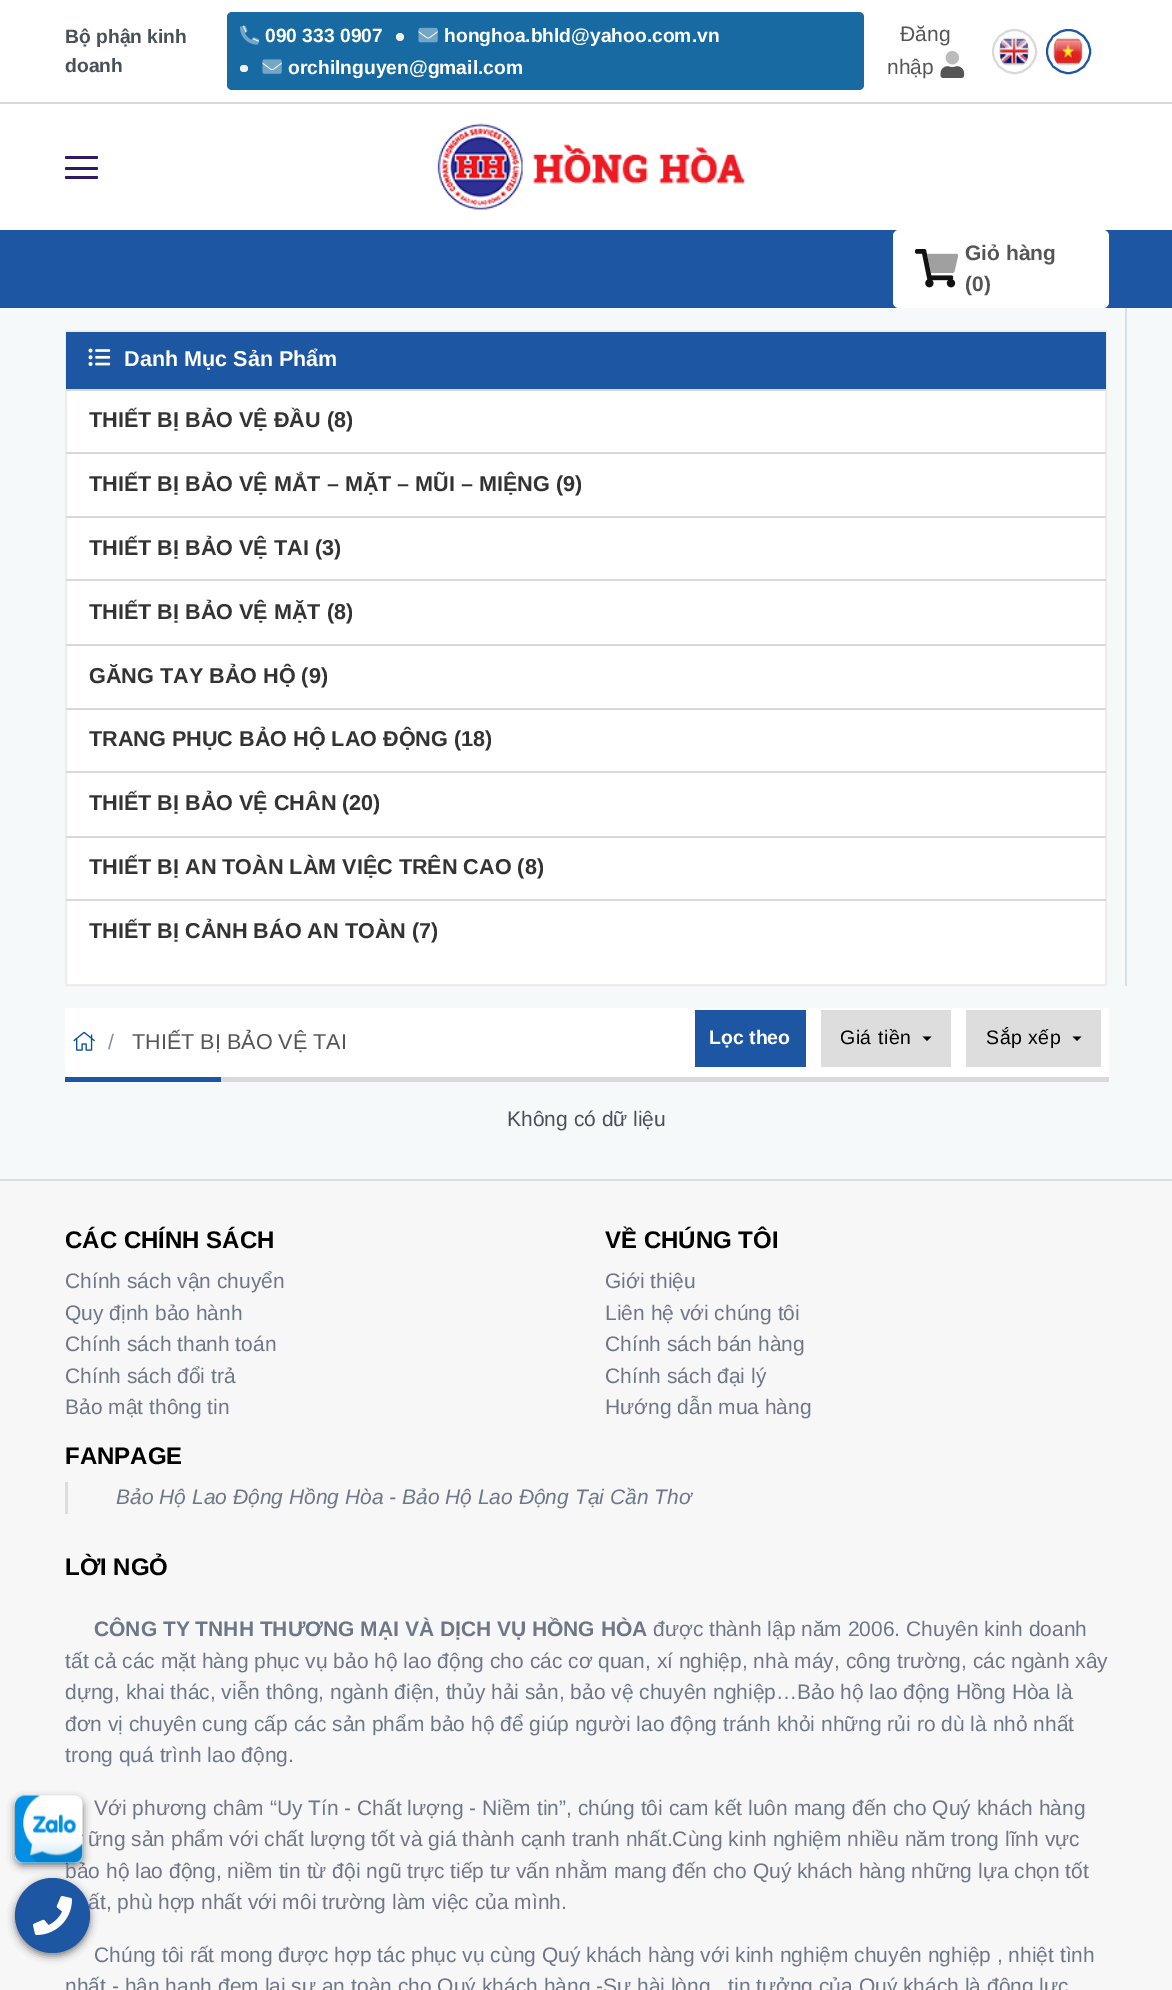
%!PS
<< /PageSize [1172 1990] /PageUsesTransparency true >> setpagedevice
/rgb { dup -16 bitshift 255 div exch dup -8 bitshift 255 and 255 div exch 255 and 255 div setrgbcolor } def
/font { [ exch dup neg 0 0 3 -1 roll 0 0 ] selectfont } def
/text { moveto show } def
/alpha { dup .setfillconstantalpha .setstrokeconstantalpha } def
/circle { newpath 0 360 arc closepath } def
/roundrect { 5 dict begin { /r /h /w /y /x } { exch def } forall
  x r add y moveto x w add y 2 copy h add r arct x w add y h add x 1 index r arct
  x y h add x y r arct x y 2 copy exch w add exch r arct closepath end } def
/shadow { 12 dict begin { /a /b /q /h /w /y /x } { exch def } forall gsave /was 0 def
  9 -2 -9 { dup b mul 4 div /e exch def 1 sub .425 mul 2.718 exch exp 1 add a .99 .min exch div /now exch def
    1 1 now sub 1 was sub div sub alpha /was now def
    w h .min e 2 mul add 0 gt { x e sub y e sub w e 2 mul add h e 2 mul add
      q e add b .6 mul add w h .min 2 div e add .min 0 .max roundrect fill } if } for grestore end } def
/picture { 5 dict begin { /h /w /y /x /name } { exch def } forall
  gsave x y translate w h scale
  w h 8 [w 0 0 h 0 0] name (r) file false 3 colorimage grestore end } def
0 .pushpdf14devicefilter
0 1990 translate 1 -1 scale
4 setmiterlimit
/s1 { /LiberationSans-Bold 19.25 font 16#495057 rgb } def
/s2 { /LiberationSans-Bold 19.25 font 16#FFFFFF rgb } def
/s3 { /LiberationSans-Regular 21 font 16#555555 rgb } def
/s4 { /LiberationSans-Bold 21 font 16#555555 rgb } def
/s5 { /LiberationSans-Bold 21.6 font 16#FFFFFF rgb } def
/s6 { /LiberationSans-Bold 21.6 font 16#333333 rgb } def
/s7 { /LiberationSans-Regular 21 font 16#868E96 rgb } def
/s8 { /LiberationSans-Regular 21.6 font 16#555555 rgb } def
/s9 { /LiberationSans-Bold 19.5 font 16#FFFFFF rgb } def
/s10 { /LiberationSans-Regular 21 font 16#495057 rgb } def
/s11 { /LiberationSans-Regular 21 font 16#6E7687 rgb } def
/s12 { /LiberationSans-Bold 24 font 16#000000 rgb } def
/s13 { /LiberationSans-Italic 21 font 16#6E7687 rgb } def
/s14 { /LiberationSans-Bold 21 font 16#6E7687 rgb } def
16#FFFFFF rgb
0 0 1172 1990 rectfill
16#D9D9D9 rgb
0 102 1172 2 rectfill
s1
(Bộ phận kinh) 65 43 text
(doanh) 65 72 text
16#186BA2 rgb
227 12 637 78 5 roundrect fill
(pic1.raw) 240 25 20 20 picture
s2
(090 333 0907) 265 42 text
16#F1F1F1 rgb
400 37 4 circle fill
(pic2.raw) 418 27 20 16 picture
s2
(honghoa.bhld@yahoo.com.vn) 444 42 text
16#F1F1F1 rgb
240 65 8 7 3.5 roundrect fill
(pic3.raw) 262 59 20 15 picture
s2
(orchilnguyen@gmail.com) 288 74 text
s3
(Đăng) 900 41 text
(nhập) 887 74 text
(pic4.raw) 940 51 25 27 picture
16#D9D9D9 rgb
2 setlinewidth
1014.5 51.5 21.5 circle stroke
(pic5.raw) 999 37 30 29 picture
16#1D56A2 rgb
1068.5 51.5 21.5 circle stroke
(pic6.raw) 1053 37 30 29 picture
16#2D1A65 rgb
65 156 33 3 1.5 roundrect fill
65 167 33 3 1.5 roundrect fill
65 176 33 3 1.5 roundrect fill
(pic7.raw) 437 123 309 87 picture
16#1D56A2 rgb
0 230 1172 78 rectfill
16#FFFFFF rgb
893 230 216 78 6 roundrect fill
(pic8.raw) 915 249 44 39 picture
s4
(Giỏ hàng) 965 260 text
(\(0\)) 965 291 text
16#F6F9F9 rgb
0 308 1172 871 rectfill
16#D8E0E7 rgb
1125 308 2 678 rectfill
16#FFFFFF rgb
67 391 1038 593 rectfill
16#EDEDED rgb
66 331 1040 654 rectstroke
16#1D56A2 rgb
66 332 1040 57 rectfill
(pic9.raw) 88 348 23 18 picture
s5
(Danh Mục Sản Phẩm) 124 366 text
16#D9D9D9 rgb
66 389 1040 2 rectfill
s6
(THIẾT BỊ BẢO VỆ ĐẦU \(8\)) 89 427 text
16#D9D9D9 rgb
66 452 1040 2 rectfill
s6
(THIẾT BỊ BẢO VỆ MẮT – MẶT – MŨI – MIỆNG \(9\)) 89 491 text
16#D9D9D9 rgb
66 516 1040 2 rectfill
s6
(THIẾT BỊ BẢO VỆ TAI \(3\)) 89 555 text
16#D9D9D9 rgb
66 579 1040 2 rectfill
s6
(THIẾT BỊ BẢO VỆ MẶT \(8\)) 89 619 text
16#D9D9D9 rgb
66 644 1040 2 rectfill
s6
(GĂNG TAY BẢO HỘ \(9\)) 89 683 text
16#D9D9D9 rgb
66 708 1040 2 rectfill
s6
(TRANG PHỤC BẢO HỘ LAO ĐỘNG \(18\)) 89 746 text
16#D9D9D9 rgb
66 771 1040 2 rectfill
s6
(THIẾT BỊ BẢO VỆ CHÂN \(20\)) 89 810 text
16#D9D9D9 rgb
66 836 1040 2 rectfill
s6
(THIẾT BỊ AN TOÀN LÀM VIỆC TRÊN CAO \(8\)) 89 874 text
16#D9D9D9 rgb
66 899 1040 2 rectfill
s6
(THIẾT BỊ CẢNH BÁO AN TOÀN \(7\)) 89 938 text
16#FFFFFF rgb
65 1008 1044 69 rectfill
16#D9D9D9 rgb
221 1077 888 5 rectfill
(pic10.raw) 73 1031 22 20 picture
s7
(/) 108 1049 text
s8
(THIẾT BỊ BẢO VỆ TAI) 132 1049 text
16#1D56A2 rgb
695 1010 111 57 rectfill
s9
(Lọc theo) 709 1044 text
16#DDDDDD rgb
821 1010 130 57 rectfill
/LiberationSans-Regular 19.5 font
16#000000 rgb
840 1044 moveto 0.5 0 (Giá tiền) ashow
922.5 1036.5 moveto 931.5 1036.5 lineto 927 1041 lineto closepath fill
16#DDDDDD rgb
966 1010 135 57 rectfill
16#000000 rgb
986 1044 moveto 0.5 0 (Sắp xếp) ashow
1072.5 1036.5 moveto 1081.5 1036.5 lineto 1077 1041 lineto closepath fill
16#1D56A2 rgb
65 1077 156 5 rectfill
s10
(Không có dữ liệu) 507 1126 text
16#F7F7F7 rgb
0 1181 1172 809 rectfill
16#000000 rgb
15 1799 68 67 8 4 0.5 shadow
s11
(bảo hộ lao động, niềm tin từ đội ngũ trực tiếp tư vấn nhằm mang đến cho Quý khách hàng những lựa chọn tốt) 65 1878 text
(pic11.raw) 15 1795 68 69 picture
16#000000 rgb
15 1881 75 75 37.5 4 0.5 shadow
s11
(ất, phù hợp nhất với môi trường làm việc của mình.) 88 1909 text
16#1D56A2 rgb
52.5 1915.5 37.5 circle fill
(pic12.raw) 33 1896 39 39 picture
16#D9DEE5 rgb
0 1179 1172 2 rectfill
s12
(CÁC CHÍNH SÁCH) 65 1248 text
s11
(Chính sách vận chuyển) 65 1288 text
(Quy định bảo hành) 65 1320 text
(Chính sách thanh toán) 65 1351 text
(Chính sách đổi trả) 65 1383 text
(Bảo mật thông tin) 65 1414 text
s12
(VỀ CHÚNG TÔI) 605 1248 text
s11
(Giới thiệu) 605 1288 text
(Liên hệ với chúng tôi) 605 1320 text
(Chính sách bán hàng) 605 1351 text
(Chính sách đại lý) 605 1383 text
(Hướng dẫn mua hàng) 605 1414 text
s12
(FANPAGE) 65 1464 text
16#D9DEE5 rgb
65 1482 3 32 rectfill
s13
(Bảo Hộ Lao Động Hồng Hòa - Bảo Hộ Lao Động Tại Cần Thơ) 116 1504 text
s12
(LỜI NGỎ) 65 1575 text
s14
(CÔNG TY TNHH THƯƠNG MẠI VÀ DỊCH VỤ HỒNG HÒA) 94 1636 text
s11
(được thành lập năm 2006. Chuyên kinh doanh) 653 1636 text
(tất cả các mặt hàng phục vụ bảo hộ lao động cho các cơ quan, xí nghiệp, nhà máy, công trường, các ngành xây) 65 1668 text
(dựng, khai thác, viễn thông, ngành điện, thủy hải sản, bảo vệ chuyên nghiệp…Bảo hộ lao động Hồng Hòa là) 65 1699 text
(đơn vị chuyên cung cấp các sản phẩm bảo hộ để giúp người lao động tránh khỏi những rủi ro dù là nhỏ nhất) 65 1731 text
(trong quá trình lao động.) 65 1762 text
(Với phương châm “Uy Tín - Chất lượng - Niềm tin”, chúng tôi cam kết luôn mang đến cho Quý khách hàng) 94 1815 text
(ững sản phẩm với chất lượng tốt và giá thành cạnh tranh nhất.Cùng kinh nghiệm nhiều năm trong lĩnh vực) 88 1846 text
(Chúng tôi rất mong được hợp tác phục vụ cùng Quý khách hàng với kinh nghiệm chuyên nghiệp , nhiệt tình) 94 1962 text
(nhất - hân hạnh đem lại sự an toàn cho Quý khách hàng -Sự hài lòng , tin tưởng của Quý khách là động lực) 65 1993 text
.poppdf14devicefilter showpage
